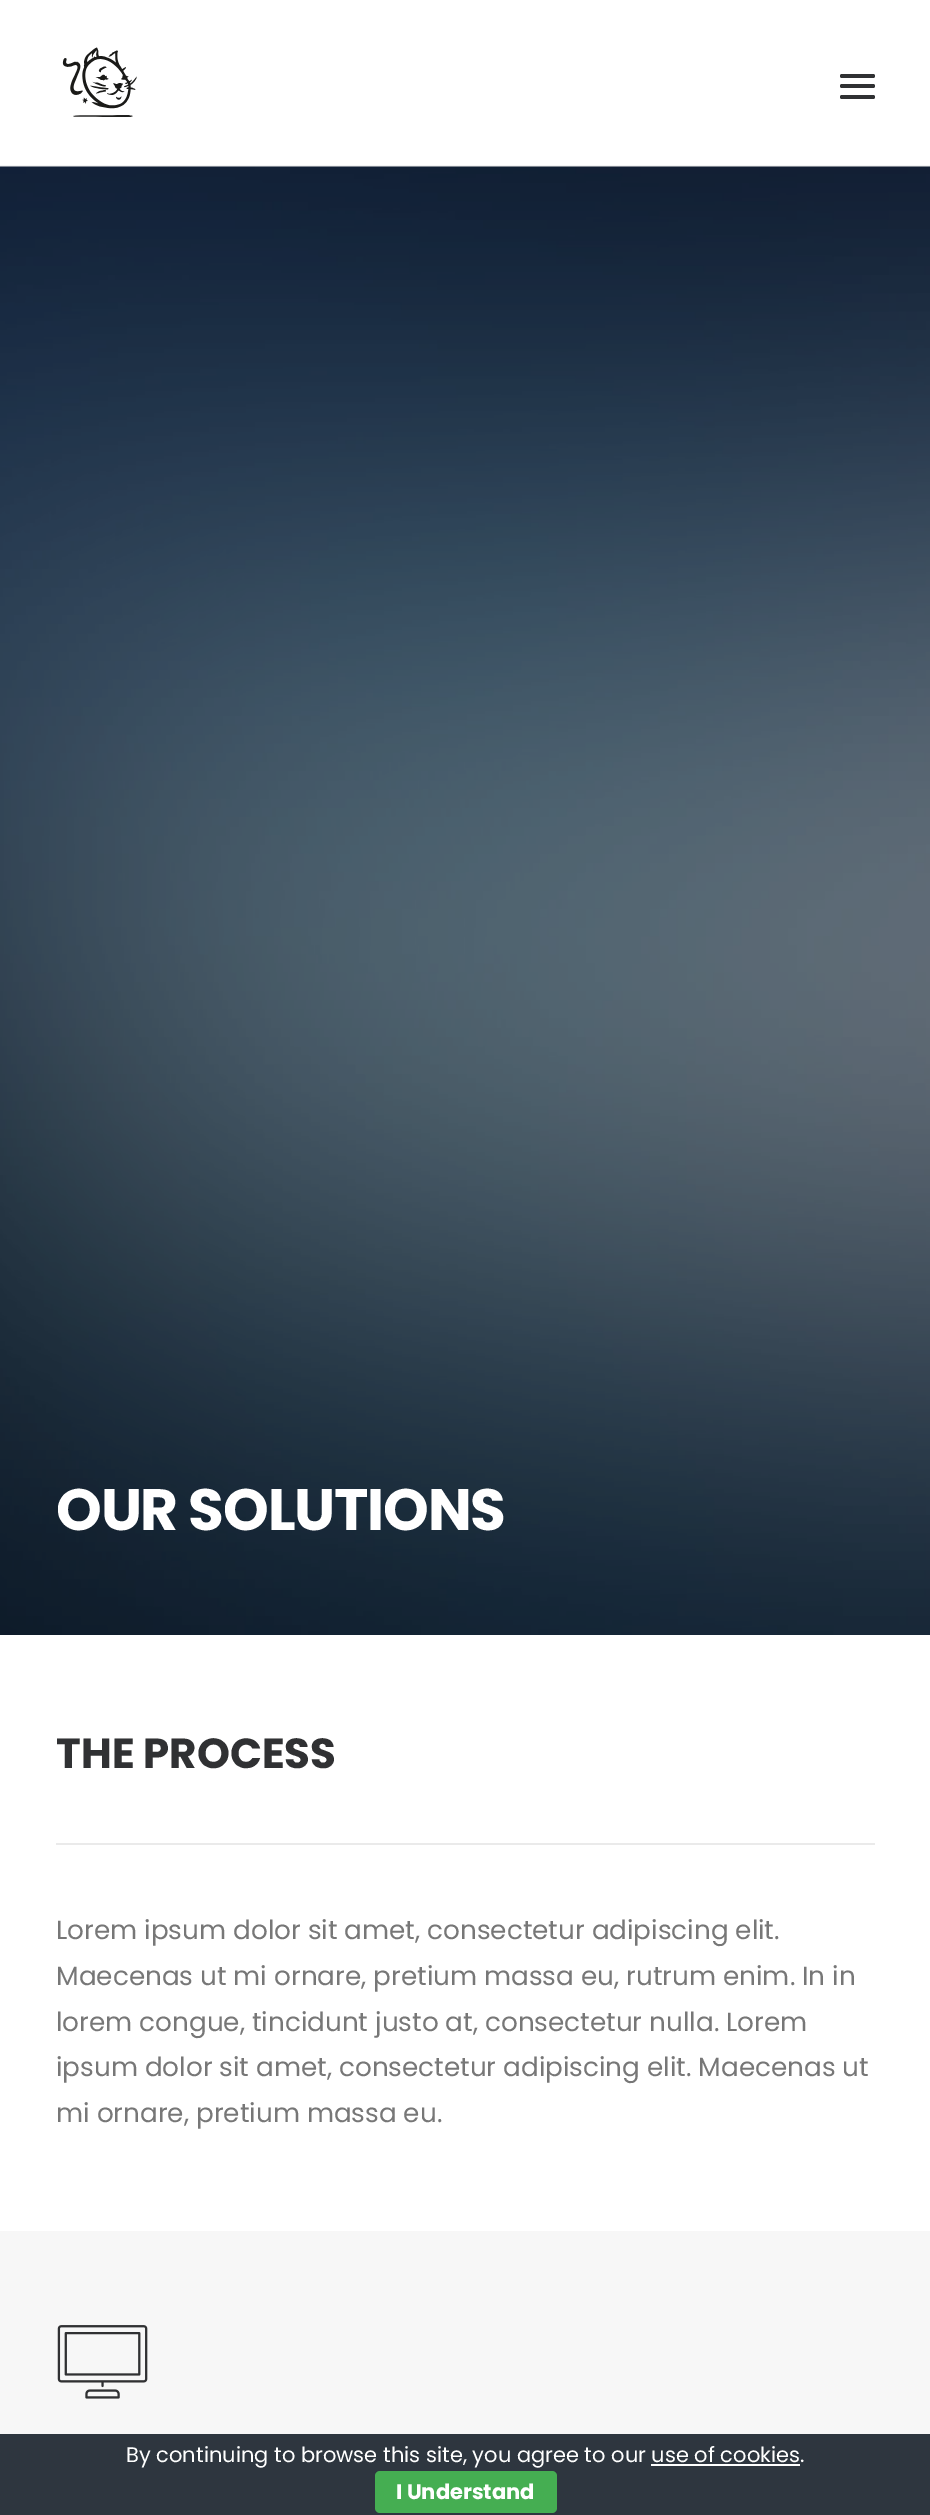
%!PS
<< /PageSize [930 2515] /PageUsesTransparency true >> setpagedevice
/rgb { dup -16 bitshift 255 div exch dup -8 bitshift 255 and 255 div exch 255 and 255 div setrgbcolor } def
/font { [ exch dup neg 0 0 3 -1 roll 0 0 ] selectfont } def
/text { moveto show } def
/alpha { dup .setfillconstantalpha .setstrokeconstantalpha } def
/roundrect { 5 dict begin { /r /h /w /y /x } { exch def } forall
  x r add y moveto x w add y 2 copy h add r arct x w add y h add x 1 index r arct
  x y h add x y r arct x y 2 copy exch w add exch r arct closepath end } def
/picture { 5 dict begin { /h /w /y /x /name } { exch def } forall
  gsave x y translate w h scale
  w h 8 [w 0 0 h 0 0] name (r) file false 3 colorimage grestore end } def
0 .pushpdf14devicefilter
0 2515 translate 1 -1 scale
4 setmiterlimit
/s1 { /Poppins-Bold 42 font 16#303133 rgb } def
/s2 { /Poppins-Regular 26.25 font 16#777777 rgb } def
/s3 { /Poppins-Regular 21 font 16#FFFFFF rgb } def
/s4 { /Poppins-Bold 21 font 16#FFFFFF rgb } def
16#FFFFFF rgb
0 0 930 2515 rectfill
(pic2.raw) 0 166 930 1469 picture
0.5 alpha
16#EAEAEA rgb
0 165 930 2 rectfill
1 alpha
(pic1.raw) 62 47 75 70 picture
16#303133 rgb
840 84 35 4 2 roundrect fill
840 74 35 4 2 roundrect fill
840 95 35 4 2 roundrect fill
/Poppins-Bold 58.25 font
16#FFFFFF rgb
56 1530 moveto -1.2 0 (OUR SOLUTIONS) ashow
s1
(THE PROCESS) 56 1768 text
16#EAEAEA rgb
56 1843 819 2 rectfill
s2
(Lorem ipsum dolor sit amet, consectetur adipiscing elit.) 56 1939 text
(Maecenas ut mi ornare, pretium massa eu, rutrum enim. In in) 56 1985 text
(lorem congue, tincidunt justo at, consectetur nulla. Lorem) 56 2031 text
(ipsum dolor sit amet, consectetur adipiscing elit. Maecenas ut) 56 2076 text
(mi ornare, pretium massa eu.) 56 2122 text
16#F7F7F7 rgb
0 2231 930 203 rectfill
(pic3.raw) 57 2325 91 74 picture
16#2E363F rgb
0 2434 930 81 rectfill
s3
(By continuing to browse this site, you agree to our use of cookies.) 126 2462 text
651 2464 149 2 rectfill
16#45AE52 rgb
375 2471 182 42 5 roundrect fill
s4
(I Understand) 396 2499 text
.poppdf14devicefilter showpage
